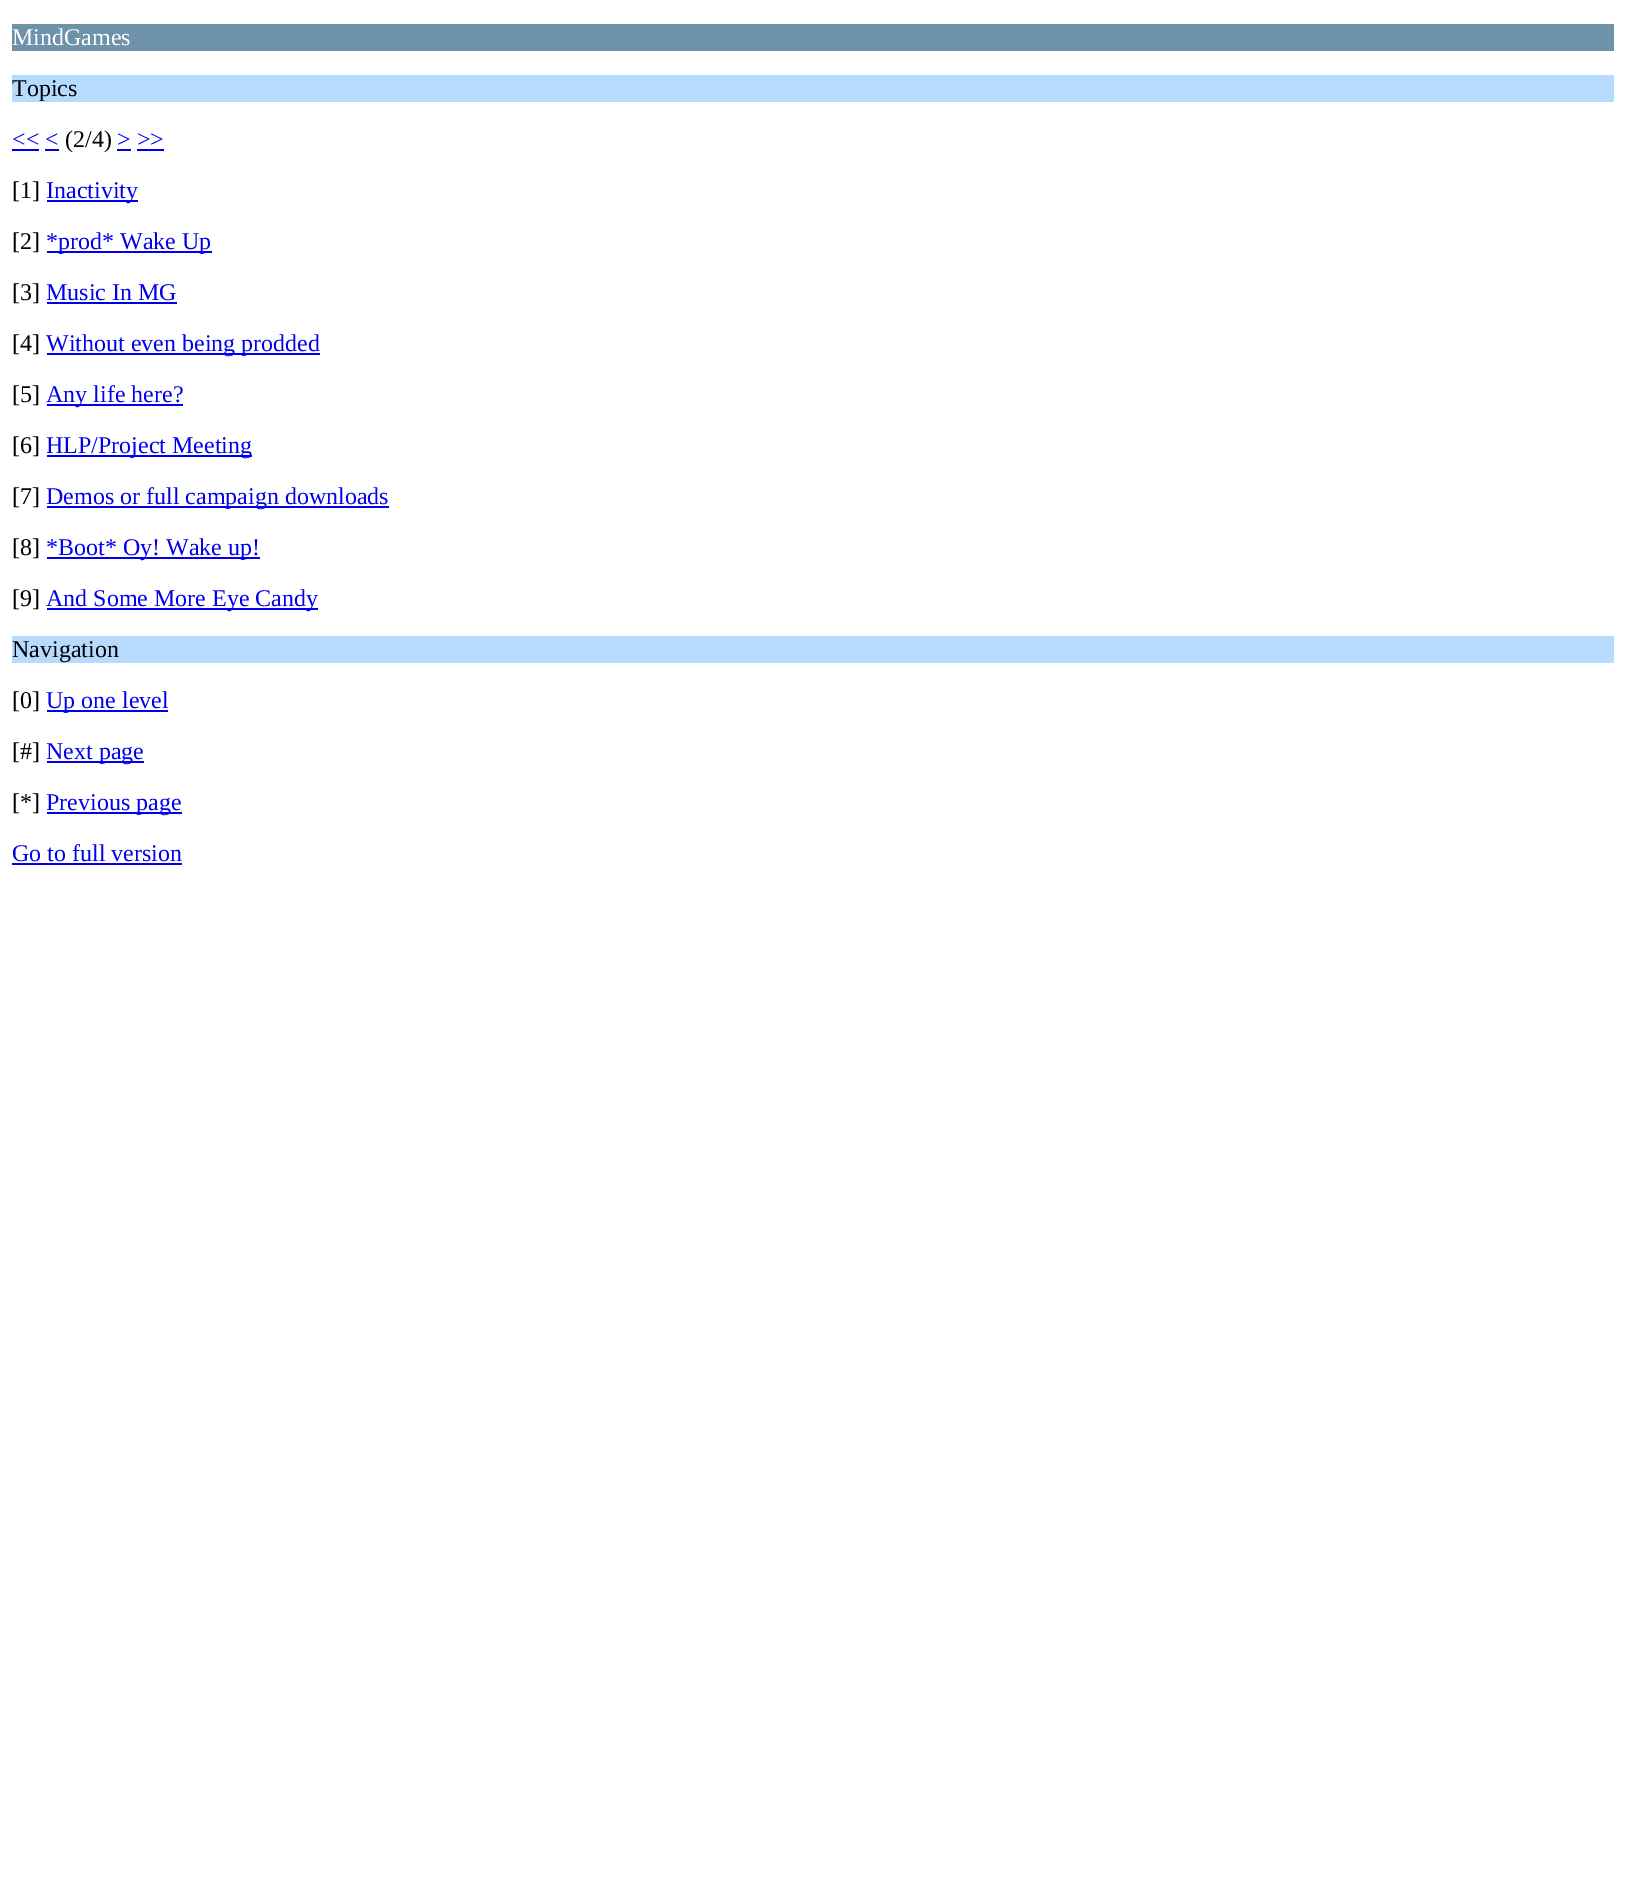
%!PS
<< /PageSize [1626 1896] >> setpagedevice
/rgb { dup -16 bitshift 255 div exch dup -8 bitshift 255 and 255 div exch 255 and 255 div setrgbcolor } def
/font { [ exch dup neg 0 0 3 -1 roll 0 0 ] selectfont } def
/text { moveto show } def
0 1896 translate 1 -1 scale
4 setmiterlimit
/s1 { /LiberationSerif-Regular 24 font 16#FFFFFF rgb } def
/s2 { /LiberationSerif-Regular 24 font 16#000000 rgb } def
/s3 { /LiberationSerif-Regular 24 font 16#0000EE rgb } def
16#FFFFFF rgb
0 0 1626 1896 rectfill
16#6D92AA rgb
12 24 1602 27 rectfill
s1
(MindGames) 12 45 text
16#B6DBFF rgb
12 75 1602 27 rectfill
s2
(Topics) 12 96 text
s3
(<< <) 12 147 text
12 149 27 2 rectfill
s2
(\(2/4\)) 65 147 text
s3
(> >>) 117 147 text
117 149 14 2 rectfill
45 149 14 2 rectfill
137 149 27 2 rectfill
s2
([1]) 12 198 text
16#0000EE rgb
47 200 91 2 rectfill
(Inactivity) 46 198 text
s2
([2]) 12 249 text
16#0000EE rgb
47 251 165 2 rectfill
(*prod* Wake Up) 46 249 text
s2
([3]) 12 300 text
s3
(Music In MG) 46 300 text
47 302 130 2 rectfill
s2
([4]) 12 351 text
16#0000EE rgb
47 353 273 2 rectfill
(Without even being prodded) 46 351 text
s2
([5]) 12 402 text
16#0000EE rgb
47 404 136 2 rectfill
(Any life here?) 46 402 text
s2
([6]) 12 453 text
16#0000EE rgb
47 455 205 2 rectfill
(HLP/Project Meeting) 46 453 text
s2
([7]) 12 504 text
16#0000EE rgb
47 506 342 2 rectfill
(Demos or full campaign downloads) 46 504 text
s2
([8]) 12 555 text
16#0000EE rgb
47 557 213 2 rectfill
(*Boot* Oy! Wake up!) 46 555 text
s2
([9]) 12 606 text
16#0000EE rgb
47 608 271 2 rectfill
(And Some More Eye Candy) 46 606 text
16#B6DBFF rgb
12 636 1602 27 rectfill
s2
(Navigation) 12 657 text
([0]) 12 708 text
16#0000EE rgb
47 710 121 2 rectfill
(Up one level) 46 708 text
s2
([#]) 12 759 text
16#0000EE rgb
47 761 97 2 rectfill
(Next page) 46 759 text
s2
([*]) 12 810 text
16#0000EE rgb
47 812 135 2 rectfill
(Previous page) 46 810 text
(Go to full version) 12 861 text
12 863 170 2 rectfill
showpage
